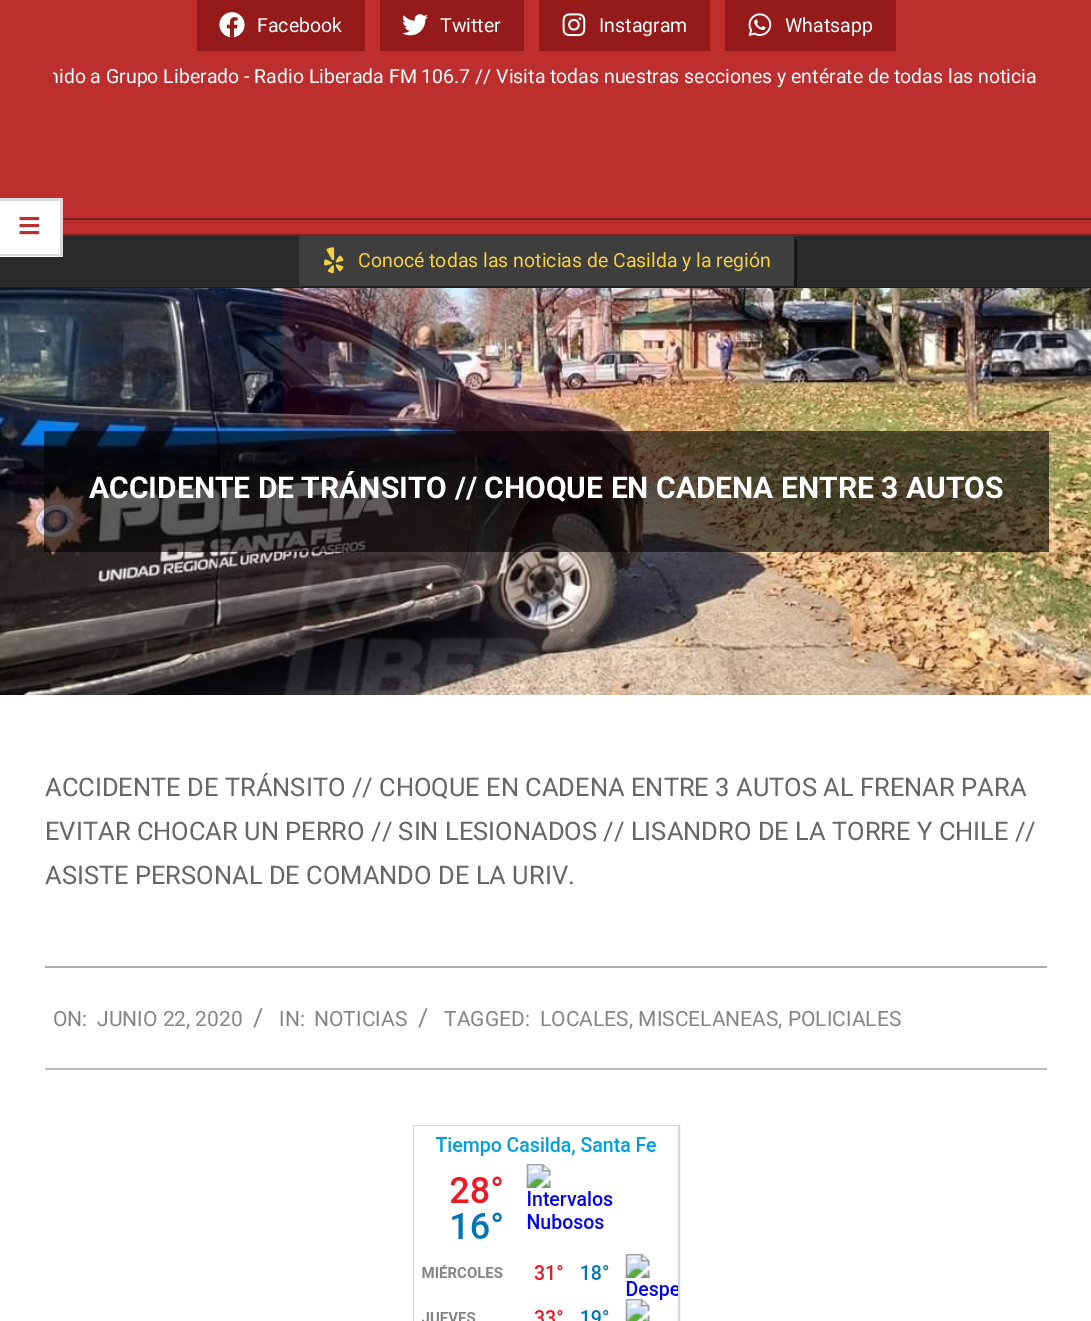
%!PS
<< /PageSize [1091 1321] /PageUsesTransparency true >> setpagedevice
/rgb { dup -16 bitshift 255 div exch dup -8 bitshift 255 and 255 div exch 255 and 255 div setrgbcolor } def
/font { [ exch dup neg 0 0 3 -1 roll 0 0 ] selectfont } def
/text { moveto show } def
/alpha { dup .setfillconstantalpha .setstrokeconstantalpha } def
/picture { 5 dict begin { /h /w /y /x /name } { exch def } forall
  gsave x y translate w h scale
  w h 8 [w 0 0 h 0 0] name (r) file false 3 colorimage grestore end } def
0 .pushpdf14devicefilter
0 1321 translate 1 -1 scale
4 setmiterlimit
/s1 { /Roboto-Regular 19.5 font 16#FFFFFF rgb } def
/s2 { /Roboto-Regular 19.5 font 16#F7D341 rgb } def
/s3 { /Roboto-Bold 30 font 16#FFFFFF rgb } def
/s4 { /Roboto-Regular 25.5 font 16#666666 rgb } def
/s5 { /Roboto-Regular 21 font 16#858585 rgb } def
/s6 { /Roboto-Regular 25 font 16#858585 rgb } def
16#BD2E2E rgb
0 0 1091 1321 rectfill
16#951A1A rgb
197 0 168 51 rectfill
(pic1.raw) 219 12 26 26 picture
s1
(Facebook) 257 32 text
16#951A1A rgb
380 0 144 51 rectfill
(pic2.raw) 402 14 26 22 picture
s1
(Twitter) 440 32 text
16#951A1A rgb
539 0 171 51 rectfill
(pic3.raw) 562 13 24 24 picture
s1
(Instagram) 599 32 text
16#951A1A rgb
725 0 171 51 rectfill
(pic4.raw) 748 13 24 24 picture
s1
(Whatsapp) 785 32 text
gsave
53 62 987 31 rectclip
(nido a Grupo Liberado - Radio Liberada FM 106.7 // Visita todas nuestras secciones y entérate de todas las noticia) 48 83 text
grestore
16#7F1F1F rgb
63 234 1028 2 rectfill
16#2A2A2A rgb
0 236 1091 51 rectfill
16#FFFFFF rgb
0 198 63 59 rectfill
16#DBDBDB rgb
0 198 moveto 63 198 lineto 60 201 lineto 0 201 lineto closepath fill
0.14 alpha
16#000000 rgb
63 198 moveto 63 256 lineto 60 254 lineto 60 201 lineto closepath fill
63 256 moveto 0 256 lineto 0 254 lineto 60 254 lineto closepath fill
1 alpha
(pic5.raw) 19 216 21 19 picture
16#7F1F1F rgb
63 218 1028 2 rectfill
16#1C1C1C rgb
0 287 1091 1 rectfill
16#3E3E3E rgb
299 236 495 51 rectfill
(pic6.raw) 324 247 20 27 picture
s2
(Conocé todas las noticias de Casilda y la región) 358 267 text
gsave
0 236 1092 51 rectclip
0.5 alpha
16#000000 rgb
302 286 moveto 302 290 lineto 797 290 lineto 797 239 lineto 794 239 lineto 794 286 lineto closepath fill
grestore
16#FFFFFF rgb
0 695 1091 626 rectfill
(pic7.raw) 0 288 1091 407 picture
0.6 alpha
16#000000 rgb
44 431 1005 121 rectfill
1 alpha
s3
(ACCIDENTE DE TRÁNSITO // CHOQUE EN CADENA ENTRE 3 AUTOS) 89 498 text
16#ABABAB rgb
45 966 1002 2 rectfill
s4
(ACCIDENTE DE TRÁNSITO // CHOQUE EN CADENA ENTRE 3 AUTOS AL FRENAR PARA) 45 796 text
(EVITAR CHOCAR UN PERRO // SIN LESIONADOS // LISANDRO DE LA TORRE Y CHILE //) 45 840 text
(ASISTE PERSONAL DE COMANDO DE LA URIV.) 45 884 text
16#BCBCBC rgb
45 1068 1002 2 rectfill
s5
(ON:) 53 1026 text
(JUNIO 22, 2020) 97 1026 text
s6
(/) 253 1026 text
s5
(IN:) 279 1026 text
(NOTICIAS) 314 1026 text
s6
(/) 418 1026 text
s5
(TAGGED:) 444 1026 text
(LOCALES, MISCELANEAS, POLICIALES) 540 1026 text
16#D6D6D6 rgb
2 setlinewidth
414 1126 265 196 rectstroke
(pic8.raw) 414 1126 264 195 picture
.poppdf14devicefilter showpage
